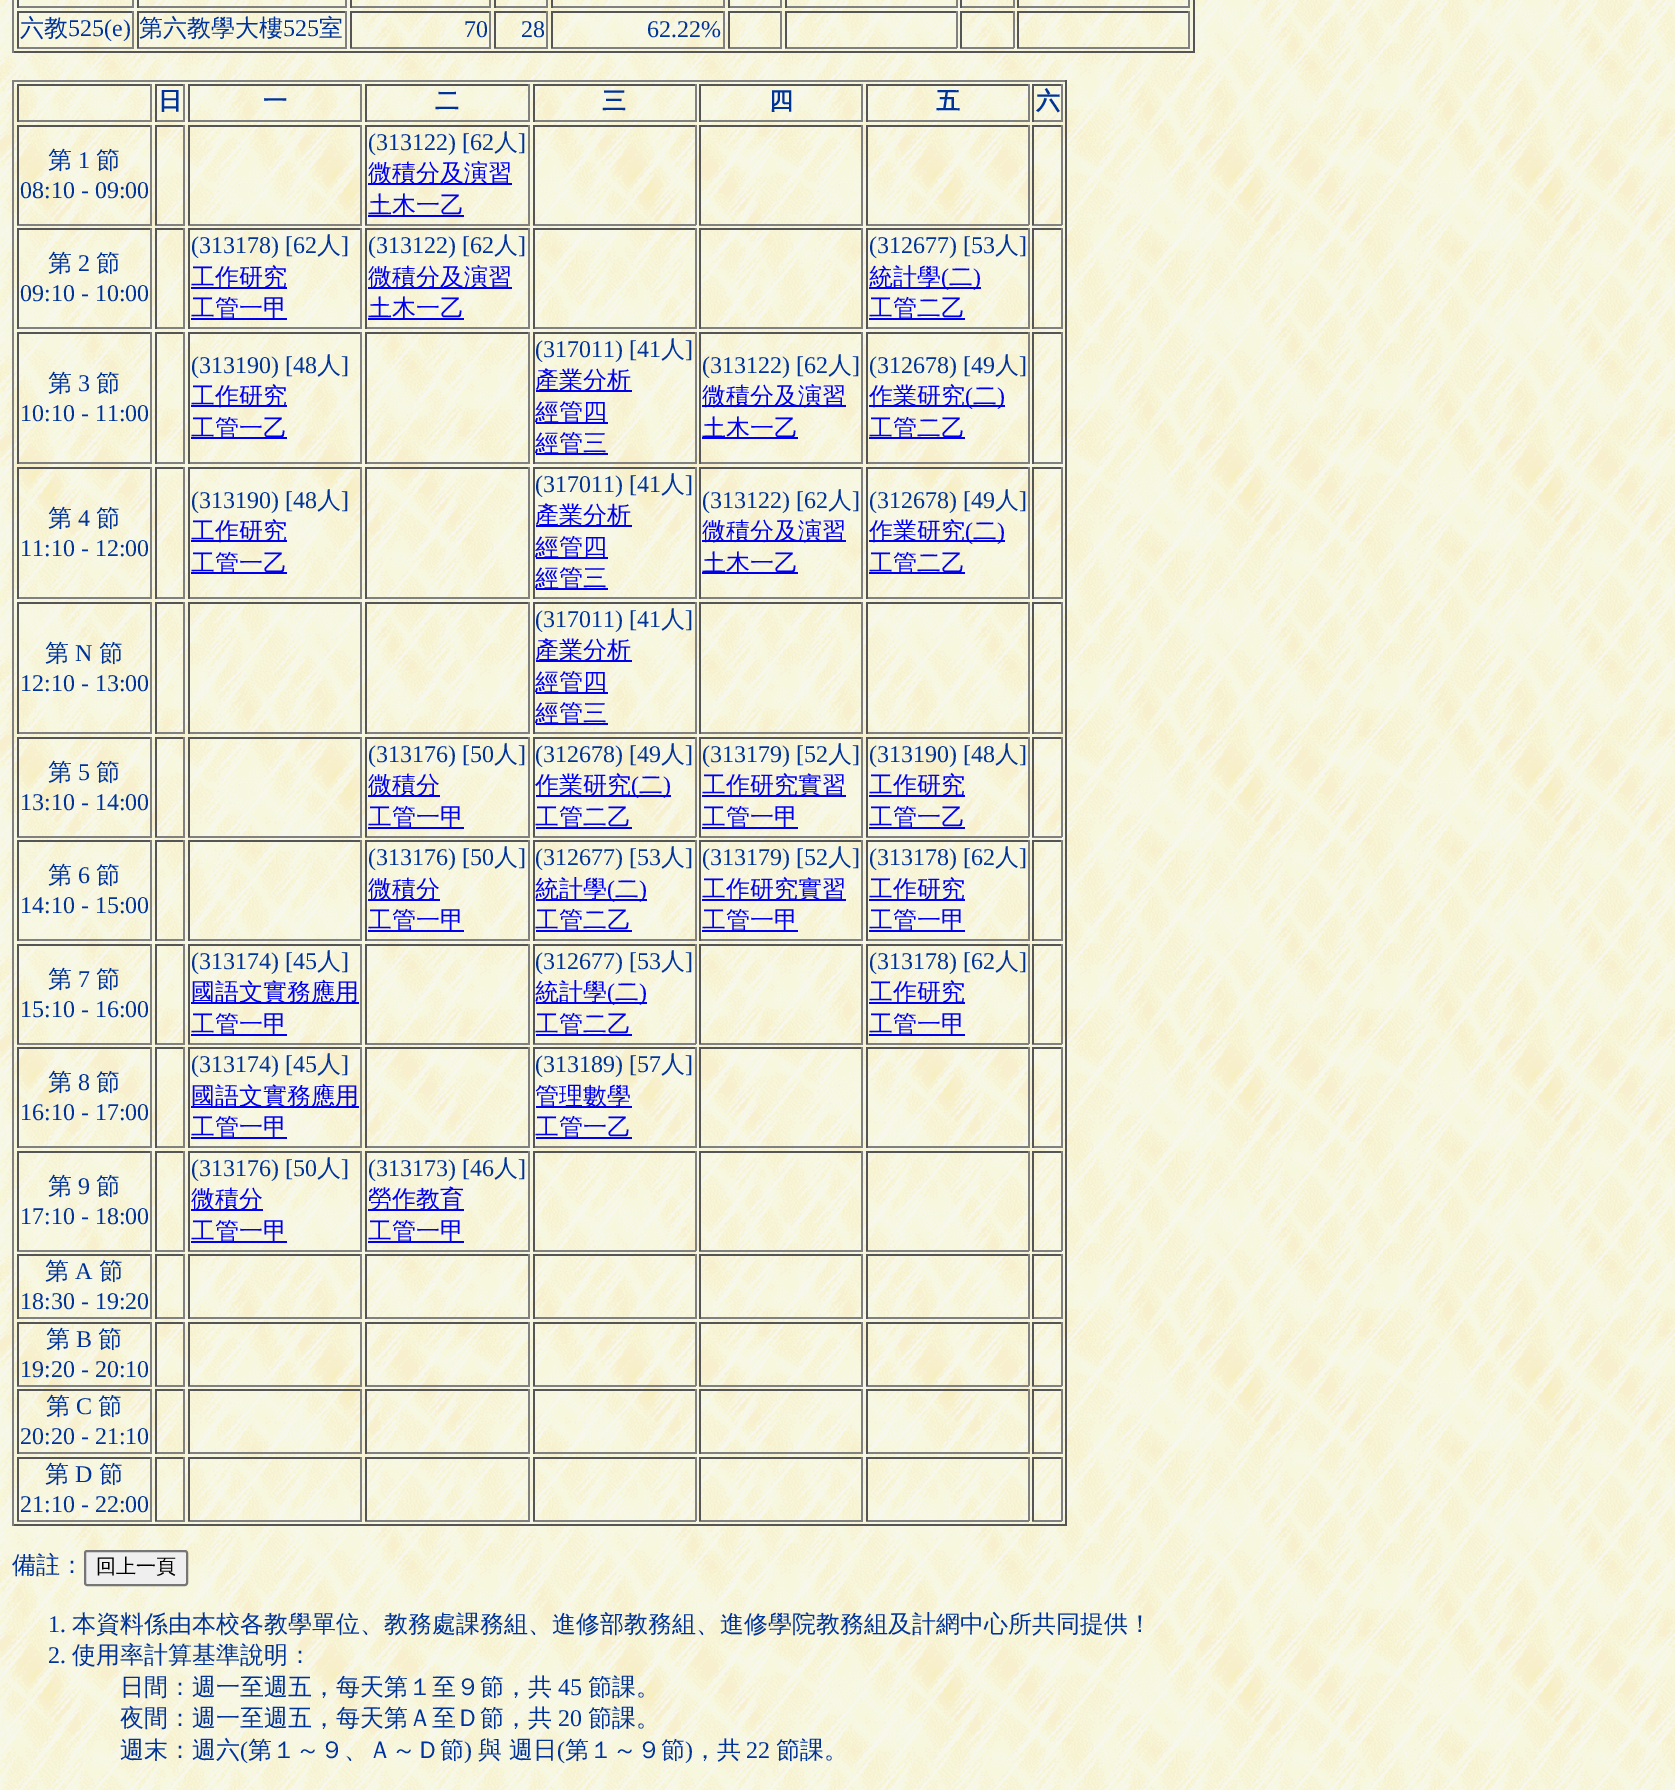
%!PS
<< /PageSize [1675 1790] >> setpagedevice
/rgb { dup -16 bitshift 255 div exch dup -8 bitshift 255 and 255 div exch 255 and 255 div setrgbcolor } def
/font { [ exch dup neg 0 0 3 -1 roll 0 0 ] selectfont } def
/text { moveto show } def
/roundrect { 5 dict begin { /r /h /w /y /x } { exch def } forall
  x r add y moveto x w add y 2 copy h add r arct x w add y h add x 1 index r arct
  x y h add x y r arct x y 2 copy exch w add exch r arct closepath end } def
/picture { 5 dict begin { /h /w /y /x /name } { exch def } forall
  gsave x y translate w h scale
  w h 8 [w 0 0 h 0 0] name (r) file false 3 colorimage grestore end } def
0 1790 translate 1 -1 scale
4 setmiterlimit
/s1 { /WenQuanYiZenHei-Medium 24 font 16#003398 rgb } def
/s2 { /LiberationSerif-Regular 24 font 16#003398 rgb } def
/s3 { /WenQuanYiZenHei-Bold 24 font 16#003398 rgb } def
/s4 { /WenQuanYiZenHei-Medium 24 font 16#0000EE rgb } def
/s5 { /LiberationSerif-Regular 24 font 16#0000EE rgb } def
/s6 { /WenQuanYiZenHei-Medium 20 font 16#000000 rgb } def
16#FFFFFF rgb
0 0 1675 1790 rectfill
(pic1.raw) 0 0 1675 1790 picture
16#555555 rgb
1193 0 2 53 rectfill
12 51 1182 2 rectfill
16#808080 rgb
12 0 2 53 rectfill
132 0 2 8 rectfill
17 6 117 2 rectfill
16#555555 rgb
17 0 2 8 rectfill
16#808080 rgb
345 0 2 8 rectfill
137 6 210 2 rectfill
16#555555 rgb
137 0 2 8 rectfill
16#808080 rgb
489 0 2 8 rectfill
350 6 141 2 rectfill
16#555555 rgb
350 0 2 8 rectfill
16#808080 rgb
546 0 2 8 rectfill
494 6 54 2 rectfill
16#555555 rgb
494 0 2 8 rectfill
16#808080 rgb
723 0 2 8 rectfill
551 6 174 2 rectfill
16#555555 rgb
551 0 2 8 rectfill
16#808080 rgb
780 0 2 8 rectfill
728 6 54 2 rectfill
16#555555 rgb
728 0 2 8 rectfill
16#808080 rgb
956 0 2 8 rectfill
785 6 172 2 rectfill
16#555555 rgb
785 0 2 8 rectfill
16#808080 rgb
1013 0 2 8 rectfill
960 6 54 2 rectfill
16#555555 rgb
960 0 2 8 rectfill
16#808080 rgb
1188 0 2 8 rectfill
1017 6 173 2 rectfill
16#555555 rgb
1017 0 2 8 rectfill
17 11 117 2 rectfill
16#808080 rgb
132 11 2 37 rectfill
17 47 117 2 rectfill
16#555555 rgb
17 11 2 37 rectfill
s1
(六教) 20 36 text
s2
(525\(e\)) 68 36 text
16#555555 rgb
137 11 210 2 rectfill
16#808080 rgb
345 11 2 37 rectfill
137 47 210 2 rectfill
16#555555 rgb
137 11 2 37 rectfill
s1
(第六教學大樓) 139 36 text
s2
(525) 283 36 text
s1
(室) 319 36 text
16#555555 rgb
350 11 141 2 rectfill
16#808080 rgb
489 11 2 37 rectfill
350 47 141 2 rectfill
16#555555 rgb
350 11 2 37 rectfill
s2
(70) 464 37 text
16#555555 rgb
494 11 54 2 rectfill
16#808080 rgb
546 11 2 37 rectfill
494 47 54 2 rectfill
16#555555 rgb
494 11 2 37 rectfill
s2
(28) 521 37 text
16#555555 rgb
551 11 174 2 rectfill
16#808080 rgb
723 11 2 37 rectfill
551 47 174 2 rectfill
16#555555 rgb
551 11 2 37 rectfill
s2
(62.22%) 647 37 text
16#555555 rgb
728 11 54 2 rectfill
16#808080 rgb
780 11 2 37 rectfill
728 47 54 2 rectfill
16#555555 rgb
728 11 2 37 rectfill
785 11 172 2 rectfill
16#808080 rgb
956 11 2 37 rectfill
785 47 172 2 rectfill
16#555555 rgb
785 11 2 37 rectfill
960 11 54 2 rectfill
16#808080 rgb
1013 11 2 37 rectfill
960 47 54 2 rectfill
16#555555 rgb
960 11 2 37 rectfill
1017 11 173 2 rectfill
16#808080 rgb
1188 11 2 37 rectfill
1017 47 173 2 rectfill
16#555555 rgb
1017 11 2 37 rectfill
16#808080 rgb
12 80 1055 2 rectfill
16#555555 rgb
1065 80 2 1446 rectfill
12 1524 1055 2 rectfill
16#808080 rgb
12 80 2 1446 rectfill
16#555555 rgb
17 84 135 2 rectfill
16#808080 rgb
150 84 2 38 rectfill
17 120 135 2 rectfill
16#555555 rgb
17 84 2 38 rectfill
155 84 30 2 rectfill
16#808080 rgb
183 84 2 38 rectfill
155 120 30 2 rectfill
16#555555 rgb
155 84 2 38 rectfill
s3
(日) 158 109 text
16#555555 rgb
188 84 174 2 rectfill
16#808080 rgb
360 84 2 38 rectfill
188 120 174 2 rectfill
16#555555 rgb
188 84 2 38 rectfill
s3
(一) 263 109 text
16#555555 rgb
365 84 165 2 rectfill
16#808080 rgb
528 84 2 38 rectfill
365 120 165 2 rectfill
16#555555 rgb
365 84 2 38 rectfill
s3
(二) 435 109 text
16#555555 rgb
533 84 163 2 rectfill
16#808080 rgb
695 84 2 38 rectfill
533 120 163 2 rectfill
16#555555 rgb
533 84 2 38 rectfill
s3
(三) 602 109 text
16#555555 rgb
699 84 164 2 rectfill
16#808080 rgb
861 84 2 38 rectfill
699 120 164 2 rectfill
16#555555 rgb
699 84 2 38 rectfill
s3
(四) 769 109 text
16#555555 rgb
866 84 163 2 rectfill
16#808080 rgb
1028 84 2 38 rectfill
866 120 163 2 rectfill
16#555555 rgb
866 84 2 38 rectfill
s3
(五) 936 109 text
16#555555 rgb
1032 84 30 2 rectfill
16#808080 rgb
1061 84 2 38 rectfill
1032 120 30 2 rectfill
16#555555 rgb
1032 84 2 38 rectfill
s3
(六) 1036 109 text
16#555555 rgb
17 125 135 2 rectfill
16#808080 rgb
150 125 2 100 rectfill
17 224 135 2 rectfill
16#555555 rgb
17 125 2 100 rectfill
s1
(第) 48 168 text
s2
(1) 78 168 text
s1
(節) 96 168 text
s2
(08:10 - 09:00) 20 198 text
16#555555 rgb
155 125 30 2 rectfill
16#808080 rgb
183 125 2 100 rectfill
155 224 30 2 rectfill
16#555555 rgb
155 125 2 100 rectfill
188 125 174 2 rectfill
16#808080 rgb
360 125 2 100 rectfill
188 224 174 2 rectfill
16#555555 rgb
188 125 2 100 rectfill
365 125 165 2 rectfill
16#808080 rgb
528 125 2 100 rectfill
365 224 165 2 rectfill
16#555555 rgb
365 125 2 100 rectfill
s2
(\(313122\) [62) 368 150 text
s1
(人) 494 150 text
s2
(]) 518 150 text
16#0000EE rgb
368 183 144 2 rectfill
s4
(微積分及演習) 368 181 text
368 215 96 2 rectfill
(土木一乙) 368 213 text
16#555555 rgb
533 125 163 2 rectfill
16#808080 rgb
695 125 2 100 rectfill
533 224 163 2 rectfill
16#555555 rgb
533 125 2 100 rectfill
699 125 164 2 rectfill
16#808080 rgb
861 125 2 100 rectfill
699 224 164 2 rectfill
16#555555 rgb
699 125 2 100 rectfill
866 125 163 2 rectfill
16#808080 rgb
1028 125 2 100 rectfill
866 224 163 2 rectfill
16#555555 rgb
866 125 2 100 rectfill
1032 125 30 2 rectfill
16#808080 rgb
1061 125 2 100 rectfill
1032 224 30 2 rectfill
16#555555 rgb
1032 125 2 100 rectfill
17 228 135 2 rectfill
16#808080 rgb
150 228 2 101 rectfill
17 327 135 2 rectfill
16#555555 rgb
17 228 2 101 rectfill
s1
(第) 48 271 text
s2
(2) 78 271 text
s1
(節) 96 271 text
s2
(09:10 - 10:00) 20 301 text
16#555555 rgb
155 228 30 2 rectfill
16#808080 rgb
183 228 2 101 rectfill
155 327 30 2 rectfill
16#555555 rgb
155 228 2 101 rectfill
188 228 174 2 rectfill
16#808080 rgb
360 228 2 101 rectfill
188 327 174 2 rectfill
16#555555 rgb
188 228 2 101 rectfill
s2
(\(313178\) [62) 191 253 text
s1
(人) 317 253 text
s2
(]) 341 253 text
16#0000EE rgb
191 287 96 2 rectfill
s4
(工作研究) 191 285 text
191 318 96 2 rectfill
(工管一甲) 191 316 text
16#555555 rgb
365 228 165 2 rectfill
16#808080 rgb
528 228 2 101 rectfill
365 327 165 2 rectfill
16#555555 rgb
365 228 2 101 rectfill
s2
(\(313122\) [62) 368 253 text
s1
(人) 494 253 text
s2
(]) 518 253 text
16#0000EE rgb
368 287 144 2 rectfill
s4
(微積分及演習) 368 285 text
368 318 96 2 rectfill
(土木一乙) 368 316 text
16#555555 rgb
533 228 163 2 rectfill
16#808080 rgb
695 228 2 101 rectfill
533 327 163 2 rectfill
16#555555 rgb
533 228 2 101 rectfill
699 228 164 2 rectfill
16#808080 rgb
861 228 2 101 rectfill
699 327 164 2 rectfill
16#555555 rgb
699 228 2 101 rectfill
866 228 163 2 rectfill
16#808080 rgb
1028 228 2 101 rectfill
866 327 163 2 rectfill
16#555555 rgb
866 228 2 101 rectfill
s2
(\(312677\) [53) 869 253 text
s1
(人) 995 253 text
s2
(]) 1019 253 text
16#0000EE rgb
869 287 112 2 rectfill
s4
(統計學) 869 285 text
s5
(\() 941 285 text
s4
(二) 949 285 text
s5
(\)) 973 285 text
869 318 96 2 rectfill
s4
(工管二乙) 869 316 text
16#555555 rgb
1032 228 30 2 rectfill
16#808080 rgb
1061 228 2 101 rectfill
1032 327 30 2 rectfill
16#555555 rgb
1032 228 2 101 rectfill
17 332 135 2 rectfill
16#808080 rgb
150 332 2 132 rectfill
17 462 135 2 rectfill
16#555555 rgb
17 332 2 132 rectfill
s1
(第) 48 391 text
s2
(3) 78 391 text
s1
(節) 96 391 text
s2
(10:10 - 11:00) 20 421 text
16#555555 rgb
155 332 30 2 rectfill
16#808080 rgb
183 332 2 132 rectfill
155 462 30 2 rectfill
16#555555 rgb
155 332 2 132 rectfill
188 332 174 2 rectfill
16#808080 rgb
360 332 2 132 rectfill
188 462 174 2 rectfill
16#555555 rgb
188 332 2 132 rectfill
s2
(\(313190\) [48) 191 373 text
s1
(人) 317 373 text
s2
(]) 341 373 text
16#0000EE rgb
191 405 96 2 rectfill
s4
(工作研究) 191 404 text
191 437 96 2 rectfill
(工管一乙) 191 436 text
16#555555 rgb
365 332 165 2 rectfill
16#808080 rgb
528 332 2 132 rectfill
365 462 165 2 rectfill
16#555555 rgb
365 332 2 132 rectfill
533 332 163 2 rectfill
16#808080 rgb
695 332 2 132 rectfill
533 462 163 2 rectfill
16#555555 rgb
533 332 2 132 rectfill
s2
(\(317011\) [41) 535 357 text
s1
(人) 661 357 text
s2
(]) 685 357 text
16#0000EE rgb
536 390 96 2 rectfill
s4
(產業分析) 535 388 text
536 422 72 2 rectfill
(經管四) 535 420 text
536 453 72 2 rectfill
(經管三) 535 451 text
16#555555 rgb
699 332 164 2 rectfill
16#808080 rgb
861 332 2 132 rectfill
699 462 164 2 rectfill
16#555555 rgb
699 332 2 132 rectfill
s2
(\(313122\) [62) 702 373 text
s1
(人) 828 373 text
s2
(]) 852 373 text
16#0000EE rgb
702 405 144 2 rectfill
s4
(微積分及演習) 702 404 text
702 437 96 2 rectfill
(土木一乙) 702 436 text
16#555555 rgb
866 332 163 2 rectfill
16#808080 rgb
1028 332 2 132 rectfill
866 462 163 2 rectfill
16#555555 rgb
866 332 2 132 rectfill
s2
(\(312678\) [49) 869 373 text
s1
(人) 995 373 text
s2
(]) 1019 373 text
16#0000EE rgb
869 405 136 2 rectfill
s4
(作業研究) 869 404 text
s5
(\() 965 404 text
s4
(二) 973 404 text
s5
(\)) 997 404 text
869 437 96 2 rectfill
s4
(工管二乙) 869 436 text
16#555555 rgb
1032 332 30 2 rectfill
16#808080 rgb
1061 332 2 132 rectfill
1032 462 30 2 rectfill
16#555555 rgb
1032 332 2 132 rectfill
17 467 135 2 rectfill
16#808080 rgb
150 467 2 132 rectfill
17 597 135 2 rectfill
16#555555 rgb
17 467 2 132 rectfill
s1
(第) 48 526 text
s2
(4) 78 526 text
s1
(節) 96 526 text
s2
(11:10 - 12:00) 20 556 text
16#555555 rgb
155 467 30 2 rectfill
16#808080 rgb
183 467 2 132 rectfill
155 597 30 2 rectfill
16#555555 rgb
155 467 2 132 rectfill
188 467 174 2 rectfill
16#808080 rgb
360 467 2 132 rectfill
188 597 174 2 rectfill
16#555555 rgb
188 467 2 132 rectfill
s2
(\(313190\) [48) 191 508 text
s1
(人) 317 508 text
s2
(]) 341 508 text
16#0000EE rgb
191 540 96 2 rectfill
s4
(工作研究) 191 539 text
191 572 96 2 rectfill
(工管一乙) 191 571 text
16#555555 rgb
365 467 165 2 rectfill
16#808080 rgb
528 467 2 132 rectfill
365 597 165 2 rectfill
16#555555 rgb
365 467 2 132 rectfill
533 467 163 2 rectfill
16#808080 rgb
695 467 2 132 rectfill
533 597 163 2 rectfill
16#555555 rgb
533 467 2 132 rectfill
s2
(\(317011\) [41) 535 492 text
s1
(人) 661 492 text
s2
(]) 685 492 text
16#0000EE rgb
536 525 96 2 rectfill
s4
(產業分析) 535 523 text
536 557 72 2 rectfill
(經管四) 535 555 text
536 588 72 2 rectfill
(經管三) 535 586 text
16#555555 rgb
699 467 164 2 rectfill
16#808080 rgb
861 467 2 132 rectfill
699 597 164 2 rectfill
16#555555 rgb
699 467 2 132 rectfill
s2
(\(313122\) [62) 702 508 text
s1
(人) 828 508 text
s2
(]) 852 508 text
16#0000EE rgb
702 540 144 2 rectfill
s4
(微積分及演習) 702 539 text
702 572 96 2 rectfill
(土木一乙) 702 571 text
16#555555 rgb
866 467 163 2 rectfill
16#808080 rgb
1028 467 2 132 rectfill
866 597 163 2 rectfill
16#555555 rgb
866 467 2 132 rectfill
s2
(\(312678\) [49) 869 508 text
s1
(人) 995 508 text
s2
(]) 1019 508 text
16#0000EE rgb
869 540 136 2 rectfill
s4
(作業研究) 869 539 text
s5
(\() 965 539 text
s4
(二) 973 539 text
s5
(\)) 997 539 text
869 572 96 2 rectfill
s4
(工管二乙) 869 571 text
16#555555 rgb
1032 467 30 2 rectfill
16#808080 rgb
1061 467 2 132 rectfill
1032 597 30 2 rectfill
16#555555 rgb
1032 467 2 132 rectfill
17 602 135 2 rectfill
16#808080 rgb
150 602 2 132 rectfill
17 732 135 2 rectfill
16#555555 rgb
17 602 2 132 rectfill
s1
(第) 45 661 text
s2
(N) 75 661 text
s1
(節) 99 661 text
s2
(12:10 - 13:00) 20 691 text
16#555555 rgb
155 602 30 2 rectfill
16#808080 rgb
183 602 2 132 rectfill
155 732 30 2 rectfill
16#555555 rgb
155 602 2 132 rectfill
188 602 174 2 rectfill
16#808080 rgb
360 602 2 132 rectfill
188 732 174 2 rectfill
16#555555 rgb
188 602 2 132 rectfill
365 602 165 2 rectfill
16#808080 rgb
528 602 2 132 rectfill
365 732 165 2 rectfill
16#555555 rgb
365 602 2 132 rectfill
533 602 163 2 rectfill
16#808080 rgb
695 602 2 132 rectfill
533 732 163 2 rectfill
16#555555 rgb
533 602 2 132 rectfill
s2
(\(317011\) [41) 535 627 text
s1
(人) 661 627 text
s2
(]) 685 627 text
16#0000EE rgb
536 660 96 2 rectfill
s4
(產業分析) 535 658 text
536 692 72 2 rectfill
(經管四) 535 690 text
536 723 72 2 rectfill
(經管三) 535 721 text
16#555555 rgb
699 602 164 2 rectfill
16#808080 rgb
861 602 2 132 rectfill
699 732 164 2 rectfill
16#555555 rgb
699 602 2 132 rectfill
866 602 163 2 rectfill
16#808080 rgb
1028 602 2 132 rectfill
866 732 163 2 rectfill
16#555555 rgb
866 602 2 132 rectfill
1032 602 30 2 rectfill
16#808080 rgb
1061 602 2 132 rectfill
1032 732 30 2 rectfill
16#555555 rgb
1032 602 2 132 rectfill
17 737 135 2 rectfill
16#808080 rgb
150 737 2 100 rectfill
17 836 135 2 rectfill
16#555555 rgb
17 737 2 100 rectfill
s1
(第) 48 780 text
s2
(5) 78 780 text
s1
(節) 96 780 text
s2
(13:10 - 14:00) 20 810 text
16#555555 rgb
155 737 30 2 rectfill
16#808080 rgb
183 737 2 100 rectfill
155 836 30 2 rectfill
16#555555 rgb
155 737 2 100 rectfill
188 737 174 2 rectfill
16#808080 rgb
360 737 2 100 rectfill
188 836 174 2 rectfill
16#555555 rgb
188 737 2 100 rectfill
365 737 165 2 rectfill
16#808080 rgb
528 737 2 100 rectfill
365 836 165 2 rectfill
16#555555 rgb
365 737 2 100 rectfill
s2
(\(313176\) [50) 368 762 text
s1
(人) 494 762 text
s2
(]) 518 762 text
16#0000EE rgb
368 795 72 2 rectfill
s4
(微積分) 368 793 text
368 827 96 2 rectfill
(工管一甲) 368 825 text
16#555555 rgb
533 737 163 2 rectfill
16#808080 rgb
695 737 2 100 rectfill
533 836 163 2 rectfill
16#555555 rgb
533 737 2 100 rectfill
s2
(\(312678\) [49) 535 762 text
s1
(人) 661 762 text
s2
(]) 685 762 text
16#0000EE rgb
536 795 135 2 rectfill
s4
(作業研究) 535 793 text
s5
(\() 631 793 text
s4
(二) 639 793 text
s5
(\)) 663 793 text
536 827 96 2 rectfill
s4
(工管二乙) 535 825 text
16#555555 rgb
699 737 164 2 rectfill
16#808080 rgb
861 737 2 100 rectfill
699 836 164 2 rectfill
16#555555 rgb
699 737 2 100 rectfill
s2
(\(313179\) [52) 702 762 text
s1
(人) 828 762 text
s2
(]) 852 762 text
16#0000EE rgb
702 795 144 2 rectfill
s4
(工作研究實習) 702 793 text
702 827 96 2 rectfill
(工管一甲) 702 825 text
16#555555 rgb
866 737 163 2 rectfill
16#808080 rgb
1028 737 2 100 rectfill
866 836 163 2 rectfill
16#555555 rgb
866 737 2 100 rectfill
s2
(\(313190\) [48) 869 762 text
s1
(人) 995 762 text
s2
(]) 1019 762 text
16#0000EE rgb
869 795 96 2 rectfill
s4
(工作研究) 869 793 text
869 827 96 2 rectfill
(工管一乙) 869 825 text
16#555555 rgb
1032 737 30 2 rectfill
16#808080 rgb
1061 737 2 100 rectfill
1032 836 30 2 rectfill
16#555555 rgb
1032 737 2 100 rectfill
17 840 135 2 rectfill
16#808080 rgb
150 840 2 101 rectfill
17 939 135 2 rectfill
16#555555 rgb
17 840 2 101 rectfill
s1
(第) 48 883 text
s2
(6) 78 883 text
s1
(節) 96 883 text
s2
(14:10 - 15:00) 20 913 text
16#555555 rgb
155 840 30 2 rectfill
16#808080 rgb
183 840 2 101 rectfill
155 939 30 2 rectfill
16#555555 rgb
155 840 2 101 rectfill
188 840 174 2 rectfill
16#808080 rgb
360 840 2 101 rectfill
188 939 174 2 rectfill
16#555555 rgb
188 840 2 101 rectfill
365 840 165 2 rectfill
16#808080 rgb
528 840 2 101 rectfill
365 939 165 2 rectfill
16#555555 rgb
365 840 2 101 rectfill
s2
(\(313176\) [50) 368 865 text
s1
(人) 494 865 text
s2
(]) 518 865 text
16#0000EE rgb
368 899 72 2 rectfill
s4
(微積分) 368 897 text
368 930 96 2 rectfill
(工管一甲) 368 928 text
16#555555 rgb
533 840 163 2 rectfill
16#808080 rgb
695 840 2 101 rectfill
533 939 163 2 rectfill
16#555555 rgb
533 840 2 101 rectfill
s2
(\(312677\) [53) 535 865 text
s1
(人) 661 865 text
s2
(]) 685 865 text
16#0000EE rgb
536 899 111 2 rectfill
s4
(統計學) 535 897 text
s5
(\() 607 897 text
s4
(二) 615 897 text
s5
(\)) 639 897 text
536 930 96 2 rectfill
s4
(工管二乙) 535 928 text
16#555555 rgb
699 840 164 2 rectfill
16#808080 rgb
861 840 2 101 rectfill
699 939 164 2 rectfill
16#555555 rgb
699 840 2 101 rectfill
s2
(\(313179\) [52) 702 865 text
s1
(人) 828 865 text
s2
(]) 852 865 text
16#0000EE rgb
702 899 144 2 rectfill
s4
(工作研究實習) 702 897 text
702 930 96 2 rectfill
(工管一甲) 702 928 text
16#555555 rgb
866 840 163 2 rectfill
16#808080 rgb
1028 840 2 101 rectfill
866 939 163 2 rectfill
16#555555 rgb
866 840 2 101 rectfill
s2
(\(313178\) [62) 869 865 text
s1
(人) 995 865 text
s2
(]) 1019 865 text
16#0000EE rgb
869 899 96 2 rectfill
s4
(工作研究) 869 897 text
869 930 96 2 rectfill
(工管一甲) 869 928 text
16#555555 rgb
1032 840 30 2 rectfill
16#808080 rgb
1061 840 2 101 rectfill
1032 939 30 2 rectfill
16#555555 rgb
1032 840 2 101 rectfill
17 944 135 2 rectfill
16#808080 rgb
150 944 2 100 rectfill
17 1043 135 2 rectfill
16#555555 rgb
17 944 2 100 rectfill
s1
(第) 48 987 text
s2
(7) 78 987 text
s1
(節) 96 987 text
s2
(15:10 - 16:00) 20 1017 text
16#555555 rgb
155 944 30 2 rectfill
16#808080 rgb
183 944 2 100 rectfill
155 1043 30 2 rectfill
16#555555 rgb
155 944 2 100 rectfill
188 944 174 2 rectfill
16#808080 rgb
360 944 2 100 rectfill
188 1043 174 2 rectfill
16#555555 rgb
188 944 2 100 rectfill
s2
(\(313174\) [45) 191 969 text
s1
(人) 317 969 text
s2
(]) 341 969 text
16#0000EE rgb
191 1002 168 2 rectfill
s4
(國語文實務應用) 191 1000 text
191 1034 96 2 rectfill
(工管一甲) 191 1032 text
16#555555 rgb
365 944 165 2 rectfill
16#808080 rgb
528 944 2 100 rectfill
365 1043 165 2 rectfill
16#555555 rgb
365 944 2 100 rectfill
533 944 163 2 rectfill
16#808080 rgb
695 944 2 100 rectfill
533 1043 163 2 rectfill
16#555555 rgb
533 944 2 100 rectfill
s2
(\(312677\) [53) 535 969 text
s1
(人) 661 969 text
s2
(]) 685 969 text
16#0000EE rgb
536 1002 111 2 rectfill
s4
(統計學) 535 1000 text
s5
(\() 607 1000 text
s4
(二) 615 1000 text
s5
(\)) 639 1000 text
536 1034 96 2 rectfill
s4
(工管二乙) 535 1032 text
16#555555 rgb
699 944 164 2 rectfill
16#808080 rgb
861 944 2 100 rectfill
699 1043 164 2 rectfill
16#555555 rgb
699 944 2 100 rectfill
866 944 163 2 rectfill
16#808080 rgb
1028 944 2 100 rectfill
866 1043 163 2 rectfill
16#555555 rgb
866 944 2 100 rectfill
s2
(\(313178\) [62) 869 969 text
s1
(人) 995 969 text
s2
(]) 1019 969 text
16#0000EE rgb
869 1002 96 2 rectfill
s4
(工作研究) 869 1000 text
869 1034 96 2 rectfill
(工管一甲) 869 1032 text
16#555555 rgb
1032 944 30 2 rectfill
16#808080 rgb
1061 944 2 100 rectfill
1032 1043 30 2 rectfill
16#555555 rgb
1032 944 2 100 rectfill
17 1047 135 2 rectfill
16#808080 rgb
150 1047 2 101 rectfill
17 1146 135 2 rectfill
16#555555 rgb
17 1047 2 101 rectfill
s1
(第) 48 1090 text
s2
(8) 78 1090 text
s1
(節) 96 1090 text
s2
(16:10 - 17:00) 20 1120 text
16#555555 rgb
155 1047 30 2 rectfill
16#808080 rgb
183 1047 2 101 rectfill
155 1146 30 2 rectfill
16#555555 rgb
155 1047 2 101 rectfill
188 1047 174 2 rectfill
16#808080 rgb
360 1047 2 101 rectfill
188 1146 174 2 rectfill
16#555555 rgb
188 1047 2 101 rectfill
s2
(\(313174\) [45) 191 1072 text
s1
(人) 317 1072 text
s2
(]) 341 1072 text
16#0000EE rgb
191 1106 168 2 rectfill
s4
(國語文實務應用) 191 1104 text
191 1137 96 2 rectfill
(工管一甲) 191 1135 text
16#555555 rgb
365 1047 165 2 rectfill
16#808080 rgb
528 1047 2 101 rectfill
365 1146 165 2 rectfill
16#555555 rgb
365 1047 2 101 rectfill
533 1047 163 2 rectfill
16#808080 rgb
695 1047 2 101 rectfill
533 1146 163 2 rectfill
16#555555 rgb
533 1047 2 101 rectfill
s2
(\(313189\) [57) 535 1072 text
s1
(人) 661 1072 text
s2
(]) 685 1072 text
16#0000EE rgb
536 1106 96 2 rectfill
s4
(管理數學) 535 1104 text
536 1137 96 2 rectfill
(工管一乙) 535 1135 text
16#555555 rgb
699 1047 164 2 rectfill
16#808080 rgb
861 1047 2 101 rectfill
699 1146 164 2 rectfill
16#555555 rgb
699 1047 2 101 rectfill
866 1047 163 2 rectfill
16#808080 rgb
1028 1047 2 101 rectfill
866 1146 163 2 rectfill
16#555555 rgb
866 1047 2 101 rectfill
1032 1047 30 2 rectfill
16#808080 rgb
1061 1047 2 101 rectfill
1032 1146 30 2 rectfill
16#555555 rgb
1032 1047 2 101 rectfill
17 1151 135 2 rectfill
16#808080 rgb
150 1151 2 100 rectfill
17 1250 135 2 rectfill
16#555555 rgb
17 1151 2 100 rectfill
s1
(第) 48 1194 text
s2
(9) 78 1194 text
s1
(節) 96 1194 text
s2
(17:10 - 18:00) 20 1224 text
16#555555 rgb
155 1151 30 2 rectfill
16#808080 rgb
183 1151 2 100 rectfill
155 1250 30 2 rectfill
16#555555 rgb
155 1151 2 100 rectfill
188 1151 174 2 rectfill
16#808080 rgb
360 1151 2 100 rectfill
188 1250 174 2 rectfill
16#555555 rgb
188 1151 2 100 rectfill
s2
(\(313176\) [50) 191 1176 text
s1
(人) 317 1176 text
s2
(]) 341 1176 text
16#0000EE rgb
191 1209 72 2 rectfill
s4
(微積分) 191 1207 text
191 1241 96 2 rectfill
(工管一甲) 191 1239 text
16#555555 rgb
365 1151 165 2 rectfill
16#808080 rgb
528 1151 2 100 rectfill
365 1250 165 2 rectfill
16#555555 rgb
365 1151 2 100 rectfill
s2
(\(313173\) [46) 368 1176 text
s1
(人) 494 1176 text
s2
(]) 518 1176 text
16#0000EE rgb
368 1209 96 2 rectfill
s4
(勞作教育) 368 1207 text
368 1241 96 2 rectfill
(工管一甲) 368 1239 text
16#555555 rgb
533 1151 163 2 rectfill
16#808080 rgb
695 1151 2 100 rectfill
533 1250 163 2 rectfill
16#555555 rgb
533 1151 2 100 rectfill
699 1151 164 2 rectfill
16#808080 rgb
861 1151 2 100 rectfill
699 1250 164 2 rectfill
16#555555 rgb
699 1151 2 100 rectfill
866 1151 163 2 rectfill
16#808080 rgb
1028 1151 2 100 rectfill
866 1250 163 2 rectfill
16#555555 rgb
866 1151 2 100 rectfill
1032 1151 30 2 rectfill
16#808080 rgb
1061 1151 2 100 rectfill
1032 1250 30 2 rectfill
16#555555 rgb
1032 1151 2 100 rectfill
17 1254 135 2 rectfill
16#808080 rgb
150 1254 2 65 rectfill
17 1317 135 2 rectfill
16#555555 rgb
17 1254 2 65 rectfill
s1
(第) 45 1279 text
s2
(A) 75 1279 text
s1
(節) 99 1279 text
s2
(18:30 - 19:20) 20 1309 text
16#555555 rgb
155 1254 30 2 rectfill
16#808080 rgb
183 1254 2 65 rectfill
155 1317 30 2 rectfill
16#555555 rgb
155 1254 2 65 rectfill
188 1254 174 2 rectfill
16#808080 rgb
360 1254 2 65 rectfill
188 1317 174 2 rectfill
16#555555 rgb
188 1254 2 65 rectfill
365 1254 165 2 rectfill
16#808080 rgb
528 1254 2 65 rectfill
365 1317 165 2 rectfill
16#555555 rgb
365 1254 2 65 rectfill
533 1254 163 2 rectfill
16#808080 rgb
695 1254 2 65 rectfill
533 1317 163 2 rectfill
16#555555 rgb
533 1254 2 65 rectfill
699 1254 164 2 rectfill
16#808080 rgb
861 1254 2 65 rectfill
699 1317 164 2 rectfill
16#555555 rgb
699 1254 2 65 rectfill
866 1254 163 2 rectfill
16#808080 rgb
1028 1254 2 65 rectfill
866 1317 163 2 rectfill
16#555555 rgb
866 1254 2 65 rectfill
1032 1254 30 2 rectfill
16#808080 rgb
1061 1254 2 65 rectfill
1032 1317 30 2 rectfill
16#555555 rgb
1032 1254 2 65 rectfill
17 1322 135 2 rectfill
16#808080 rgb
150 1322 2 64 rectfill
17 1385 135 2 rectfill
16#555555 rgb
17 1322 2 64 rectfill
s1
(第) 46 1347 text
s2
(B) 76 1347 text
s1
(節) 98 1347 text
s2
(19:20 - 20:10) 20 1377 text
16#555555 rgb
155 1322 30 2 rectfill
16#808080 rgb
183 1322 2 64 rectfill
155 1385 30 2 rectfill
16#555555 rgb
155 1322 2 64 rectfill
188 1322 174 2 rectfill
16#808080 rgb
360 1322 2 64 rectfill
188 1385 174 2 rectfill
16#555555 rgb
188 1322 2 64 rectfill
365 1322 165 2 rectfill
16#808080 rgb
528 1322 2 64 rectfill
365 1385 165 2 rectfill
16#555555 rgb
365 1322 2 64 rectfill
533 1322 163 2 rectfill
16#808080 rgb
695 1322 2 64 rectfill
533 1385 163 2 rectfill
16#555555 rgb
533 1322 2 64 rectfill
699 1322 164 2 rectfill
16#808080 rgb
861 1322 2 64 rectfill
699 1385 164 2 rectfill
16#555555 rgb
699 1322 2 64 rectfill
866 1322 163 2 rectfill
16#808080 rgb
1028 1322 2 64 rectfill
866 1385 163 2 rectfill
16#555555 rgb
866 1322 2 64 rectfill
1032 1322 30 2 rectfill
16#808080 rgb
1061 1322 2 64 rectfill
1032 1385 30 2 rectfill
16#555555 rgb
1032 1322 2 64 rectfill
17 1389 135 2 rectfill
16#808080 rgb
150 1389 2 65 rectfill
17 1452 135 2 rectfill
16#555555 rgb
17 1389 2 65 rectfill
s1
(第) 46 1414 text
s2
(C) 76 1414 text
s1
(節) 98 1414 text
s2
(20:20 - 21:10) 20 1444 text
16#555555 rgb
155 1389 30 2 rectfill
16#808080 rgb
183 1389 2 65 rectfill
155 1452 30 2 rectfill
16#555555 rgb
155 1389 2 65 rectfill
188 1389 174 2 rectfill
16#808080 rgb
360 1389 2 65 rectfill
188 1452 174 2 rectfill
16#555555 rgb
188 1389 2 65 rectfill
365 1389 165 2 rectfill
16#808080 rgb
528 1389 2 65 rectfill
365 1452 165 2 rectfill
16#555555 rgb
365 1389 2 65 rectfill
533 1389 163 2 rectfill
16#808080 rgb
695 1389 2 65 rectfill
533 1452 163 2 rectfill
16#555555 rgb
533 1389 2 65 rectfill
699 1389 164 2 rectfill
16#808080 rgb
861 1389 2 65 rectfill
699 1452 164 2 rectfill
16#555555 rgb
699 1389 2 65 rectfill
866 1389 163 2 rectfill
16#808080 rgb
1028 1389 2 65 rectfill
866 1452 163 2 rectfill
16#555555 rgb
866 1389 2 65 rectfill
1032 1389 30 2 rectfill
16#808080 rgb
1061 1389 2 65 rectfill
1032 1452 30 2 rectfill
16#555555 rgb
1032 1389 2 65 rectfill
17 1457 135 2 rectfill
16#808080 rgb
150 1457 2 64 rectfill
17 1520 135 2 rectfill
16#555555 rgb
17 1457 2 64 rectfill
s1
(第) 45 1482 text
s2
(D) 75 1482 text
s1
(節) 99 1482 text
s2
(21:10 - 22:00) 20 1512 text
16#555555 rgb
155 1457 30 2 rectfill
16#808080 rgb
183 1457 2 64 rectfill
155 1520 30 2 rectfill
16#555555 rgb
155 1457 2 64 rectfill
188 1457 174 2 rectfill
16#808080 rgb
360 1457 2 64 rectfill
188 1520 174 2 rectfill
16#555555 rgb
188 1457 2 64 rectfill
365 1457 165 2 rectfill
16#808080 rgb
528 1457 2 64 rectfill
365 1520 165 2 rectfill
16#555555 rgb
365 1457 2 64 rectfill
533 1457 163 2 rectfill
16#808080 rgb
695 1457 2 64 rectfill
533 1520 163 2 rectfill
16#555555 rgb
533 1457 2 64 rectfill
699 1457 164 2 rectfill
16#808080 rgb
861 1457 2 64 rectfill
699 1520 164 2 rectfill
16#555555 rgb
699 1457 2 64 rectfill
866 1457 163 2 rectfill
16#808080 rgb
1028 1457 2 64 rectfill
866 1520 163 2 rectfill
16#555555 rgb
866 1457 2 64 rectfill
1032 1457 30 2 rectfill
16#808080 rgb
1061 1457 2 64 rectfill
1032 1520 30 2 rectfill
16#555555 rgb
1032 1457 2 64 rectfill
s1
(備註：) 12 1573 text
16#EFEFEF rgb
85 1551 102 34 2 roundrect gsave fill grestore
16#767676 rgb
2 setlinewidth
stroke
s6
(回上一頁) 96 1573 text
s2
(1.) 48 1632 text
s1
(本資料係由本校各教學單位、教務處課務組、進修部教務組、進修學院教務組及計網中心所共同提供！) 72 1632 text
s2
(2.) 48 1663 text
s1
(使用率計算基準說明：) 72 1663 text
(日間：週一至週五，每天第１至９節，共) 120 1695 text
s2
(45) 558 1695 text
s1
(節課。) 588 1695 text
(夜間：週一至週五，每天第Ａ至Ｄ節，共) 120 1726 text
s2
(20) 558 1726 text
s1
(節課。) 588 1726 text
(週末：週六) 120 1758 text
s2
(\() 240 1758 text
s1
(第１～９、Ａ～Ｄ節) 248 1758 text
s2
(\)) 464 1758 text
s1
(與 週日) 478 1758 text
s2
(\() 557 1758 text
s1
(第１～９節) 565 1758 text
s2
(\)) 685 1758 text
s1
(，共) 693 1758 text
s2
(22) 746 1758 text
s1
(節課。) 776 1758 text
showpage
